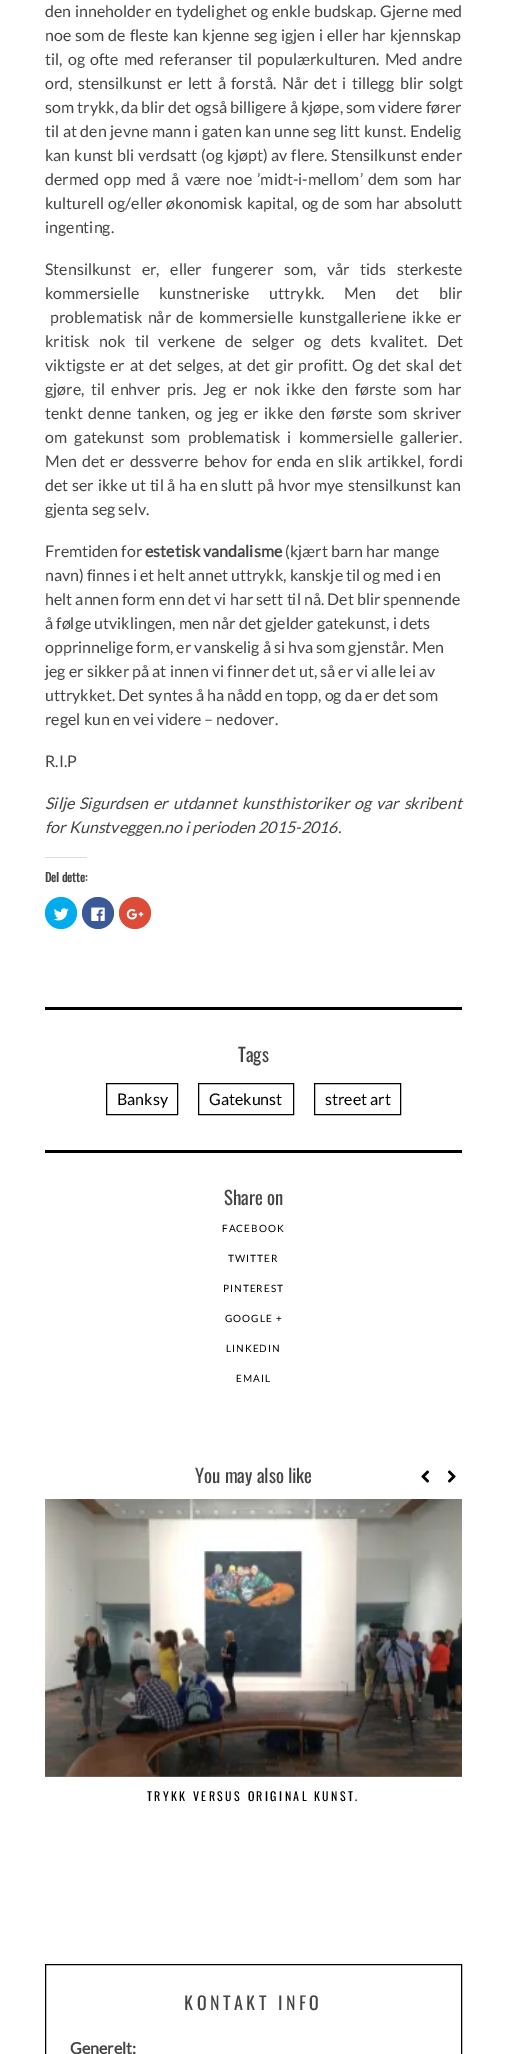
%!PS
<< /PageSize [507 2054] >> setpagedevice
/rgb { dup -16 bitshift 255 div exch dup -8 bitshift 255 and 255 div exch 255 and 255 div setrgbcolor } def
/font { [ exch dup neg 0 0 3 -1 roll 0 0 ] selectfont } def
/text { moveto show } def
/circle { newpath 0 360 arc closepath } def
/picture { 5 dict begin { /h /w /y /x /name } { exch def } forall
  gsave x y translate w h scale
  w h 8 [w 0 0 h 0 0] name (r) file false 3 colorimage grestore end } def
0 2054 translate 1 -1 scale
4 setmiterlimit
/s1 { /Lato-Regular 16 font 16#444444 rgb } def
/s2 { /Lato-Bold 16 font 16#444444 rgb } def
/s3 { /Lato-Italic 16 font 16#444444 rgb } def
/s4 { /Oswald-Bold 12 font 16#444444 rgb } def
/s5 { /Oswald-Regular 18.75 font 16#444444 rgb } def
/s6 { /Lato-Regular 16 font 16#000000 rgb } def
16#FFFFFF rgb
0 0 507 2054 rectfill
/Lato-Regular 16 font
16#444444 rgb
45 17 moveto 0.75 0 32 (den inneholder en tydelighet og enkle budskap. Gjerne med) widthshow
45 41 moveto 1 0 32 (noe som de fleste kan kjenne seg igjen i eller har kjennskap) widthshow
45 65 moveto 2 0 32 (til, og ofte med referanser til populærkulturen. Med andre) widthshow
45 89 moveto 2.25 0 32 (ord, stensilkunst er lett å forstå. Når det i tillegg blir solgt) widthshow
45 113 moveto 0.1 0 32 (som trykk, da blir det også billigere å kjøpe, som videre fører) widthshow
45 137 moveto 0.5 0 32 (til at den jevne mann i gaten kan unne seg litt kunst. Endelig) widthshow
45 161 moveto 0.75 0 32 (kan kunst bli verdsatt \(og kjøpt\) av flere. Stensilkunst ender) widthshow
45 185 moveto 2 0 32 (dermed opp med å være noe ’midt-i-mellom’ dem som har) widthshow
45 209 moveto 0.75 0 32 (kulturell og/eller økonomisk kapital, og de som har absolutt) widthshow
(ingenting.) 45 233 text
45 275 moveto 7.5 0 32 (Stensilkunst er, eller fungerer som, vår tids sterkeste) widthshow
45 299 moveto 16.5 0 32 (kommersielle kunstneriske uttrykk. Men det blir) widthshow
50 323 moveto 2.25 0 32 (problematisk når de kommersielle kunstgalleriene ikke er) widthshow
45 347 moveto 6.5 0 32 (kritisk nok til verkene de selger og dets kvalitet. Det) widthshow
45 371 moveto 1.75 0 32 (viktigste er at det selges, at det gir profitt. Og det skal det) widthshow
45 395 moveto 3.25 0 32 (gjøre, til enhver pris. Jeg er nok ikke den første som har) widthshow
45 419 moveto 2.5 0 32 (tenkt denne tanken, og jeg er ikke den første som skriver) widthshow
45 443 moveto 4.25 0 32 (om gatekunst som problematisk i kommersielle gallerier.) widthshow
45 467 moveto 1.75 0 32 (Men det er dessverre behov for enda en slik artikkel, fordi) widthshow
45 491 moveto 0.75 0 32 (det ser ikke ut til å ha en slutt på hvor mye stensilkunst kan) widthshow
(gjenta seg selv.) 45 515 text
(Fremtiden for) 45 557 text
s2
(estetisk vandalisme) 145 557 text
s1
(\(kjært barn har mange) 285 557 text
(navn\) finnes i et helt annet uttrykk, kanskje til og med i en) 45 581 text
(helt annen form enn det vi har sett til nå. Det blir spennende) 45 605 text
(å følge utviklingen, men når det gjelder gatekunst, i dets) 45 629 text
(opprinnelige form, er vanskelig å si hva som gjenstår. Men) 45 653 text
(jeg er sikker på at innen vi finner det ut, så er vi alle lei av) 45 677 text
(uttrykket. Det syntes å ha nådd en topp, og da er det som) 45 701 text
(regel kun en vei videre – nedover.) 45 725 text
(R.I.P) 45 767 text
/Lato-Italic 16 font
45 809 moveto 1.75 0 32 (Silje Sigurdsen er utdannet kunsthistoriker og var skribent) widthshow
(for Kunstveggen.no i perioden 2015-2016.) 45 833 text
16#DDDDDD rgb
45 857 42 1 rectfill
s4
(Del dette:) 45 882 text
16#00ACEE rgb
61 913 16 circle fill
(pic1.raw) 53 908 16 13 picture
16#3B5998 rgb
98 913 16 circle fill
(pic2.raw) 91 907 14 14 picture
16#DD4B39 rgb
135 913 16 circle fill
(pic3.raw) 126 909 18 11 picture
16#000000 rgb
45 1007 417 3 rectfill
s5
(Tags) 238 1062 text
16#000000 rgb
106.5 1083.5 71 31 rectstroke
s6
(Banksy) 117 1105 text
198.5 1083.5 95 31 rectstroke
(Gatekunst) 209 1105 text
314.5 1083.5 86 31 rectstroke
(street art) 325 1105 text
45 1150 417 3 rectfill
s5
(Share on) 224 1205 text
/Lato-Regular 10 font
16#000000 rgb
222 1232 moveto 1 0 (FACEBOOK) ashow
228 1262 moveto 1 0 (TWITTER) ashow
223 1292 moveto 1 0 (PINTEREST) ashow
225 1322 moveto 1 0 (GOOGLE +) ashow
226 1352 moveto 1 0 (LINKEDIN) ashow
236 1382 moveto 1 0 (EMAIL) ashow
s5
(You may also like) 195 1483 text
(pic4.raw) 421 1470 9 13 picture
(pic5.raw) 447 1470 9 13 picture
(pic6.raw) 45 1499 417 278 picture
/Oswald-Regular 12 font
16#000000 rgb
147 1801 moveto 2.4 0 (TRYKK VERSUS ORIGINAL KUNST.) ashow
45.5 1964.5 416 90 rectstroke
/Oswald-Regular 18 font
16#444444 rgb
184 2010 moveto 3.6 0 (KONTAKT INFO) ashow
s2
(Generelt:) 70 2054 text
showpage
